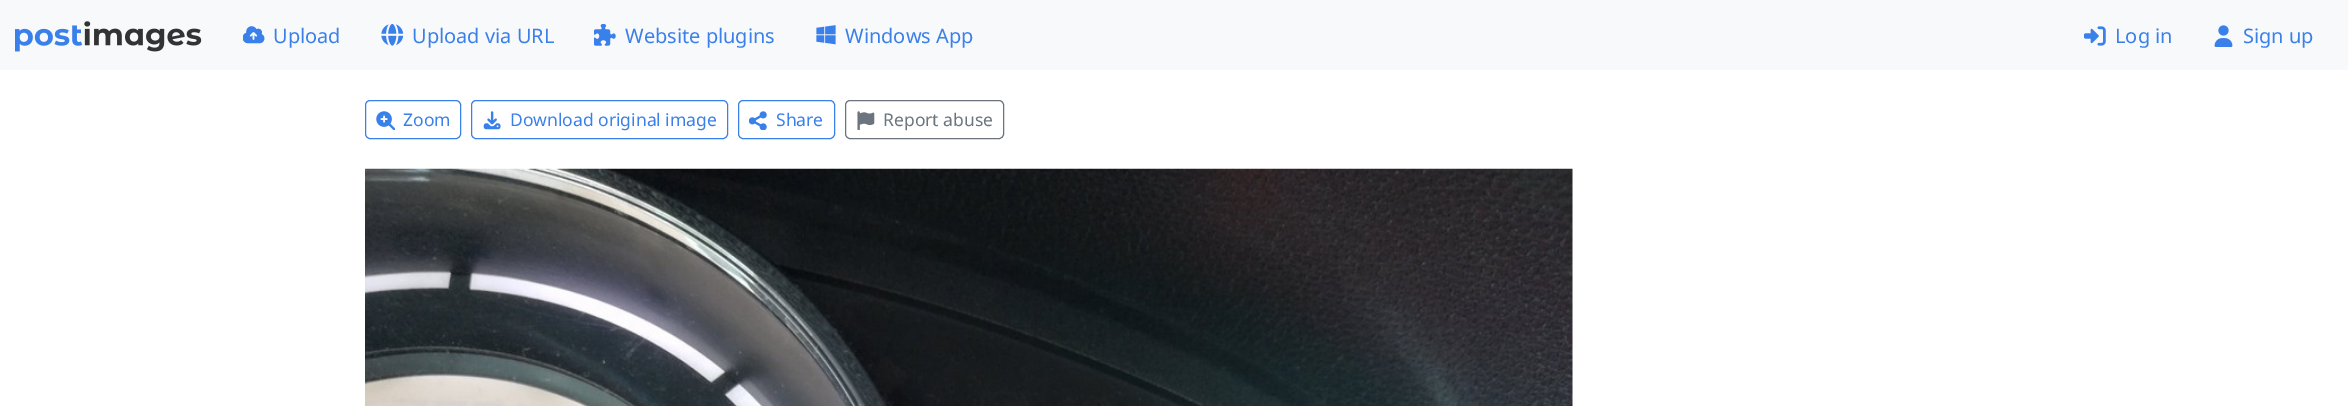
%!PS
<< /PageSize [2348 406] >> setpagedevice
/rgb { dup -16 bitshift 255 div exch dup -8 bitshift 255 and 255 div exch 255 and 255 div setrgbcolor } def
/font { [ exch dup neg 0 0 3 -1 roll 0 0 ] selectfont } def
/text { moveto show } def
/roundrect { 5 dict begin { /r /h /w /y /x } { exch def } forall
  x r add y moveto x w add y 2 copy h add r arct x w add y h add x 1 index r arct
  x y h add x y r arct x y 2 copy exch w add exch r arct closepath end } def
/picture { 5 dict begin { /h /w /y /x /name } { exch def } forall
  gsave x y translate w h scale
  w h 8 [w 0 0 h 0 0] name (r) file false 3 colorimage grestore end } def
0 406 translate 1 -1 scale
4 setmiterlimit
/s1 { /NotoSans-Regular 20 font 16#3A80EA rgb } def
/s2 { /NotoSans-Regular 17.5 font 16#3A80EA rgb } def
/s3 { /NotoSans-Regular 17.5 font 16#6C757D rgb } def
16#FFFFFF rgb
0 0 2348 406 rectfill
16#F8F9FA rgb
0 0 2348 70 rectfill
(pic1.raw) 15 21 187 31 picture
(pic2.raw) 243 26 22 18 picture
s1
(Upload) 273 43 text
(pic3.raw) 381 24 22 22 picture
(Upload via URL) 412 43 text
(pic4.raw) 594 24 22 22 picture
(Website plugins) 625 43 text
(pic5.raw) 816 25 20 20 picture
(Windows App) 845 43 text
(pic6.raw) 2084 26 22 20 picture
(Log in) 2115 43 text
(pic7.raw) 2214 25 19 22 picture
(Sign up) 2243 43 text
365.5 100.5 95 38 4.5 roundrect stroke
(pic8.raw) 376 111 19 19 picture
s2
(Zoom) 403 126 text
471.5 100.5 256 38 4.5 roundrect stroke
(pic9.raw) 483 111 18 19 picture
(Download original image) 510 126 text
738.5 100.5 96 38 4.5 roundrect stroke
(pic10.raw) 749 111 18 19 picture
(Share) 776 126 text
16#6C757D rgb
845.5 100.5 158 38 4.5 roundrect stroke
(pic11.raw) 857 111 18 19 picture
(Report abuse) 883 126 text
(pic12.raw) 365 168 1208 238 picture
showpage
